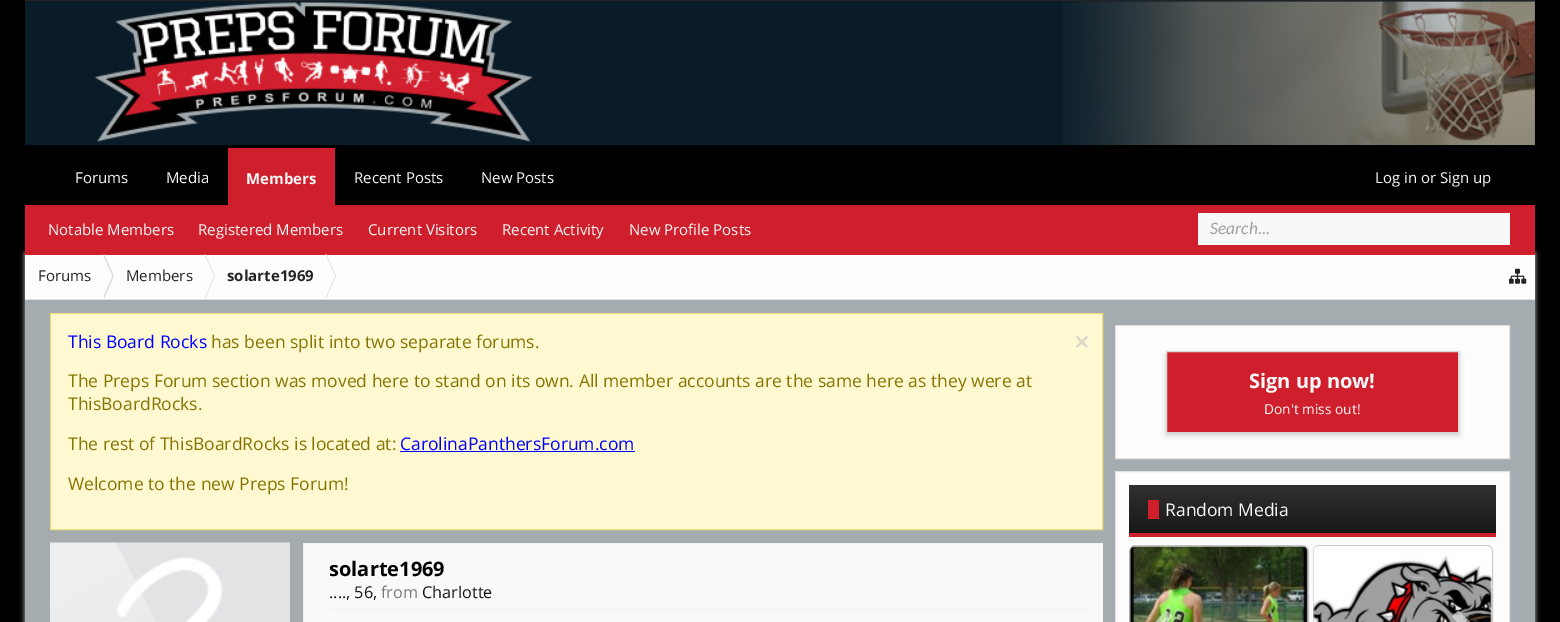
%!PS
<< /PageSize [1560 622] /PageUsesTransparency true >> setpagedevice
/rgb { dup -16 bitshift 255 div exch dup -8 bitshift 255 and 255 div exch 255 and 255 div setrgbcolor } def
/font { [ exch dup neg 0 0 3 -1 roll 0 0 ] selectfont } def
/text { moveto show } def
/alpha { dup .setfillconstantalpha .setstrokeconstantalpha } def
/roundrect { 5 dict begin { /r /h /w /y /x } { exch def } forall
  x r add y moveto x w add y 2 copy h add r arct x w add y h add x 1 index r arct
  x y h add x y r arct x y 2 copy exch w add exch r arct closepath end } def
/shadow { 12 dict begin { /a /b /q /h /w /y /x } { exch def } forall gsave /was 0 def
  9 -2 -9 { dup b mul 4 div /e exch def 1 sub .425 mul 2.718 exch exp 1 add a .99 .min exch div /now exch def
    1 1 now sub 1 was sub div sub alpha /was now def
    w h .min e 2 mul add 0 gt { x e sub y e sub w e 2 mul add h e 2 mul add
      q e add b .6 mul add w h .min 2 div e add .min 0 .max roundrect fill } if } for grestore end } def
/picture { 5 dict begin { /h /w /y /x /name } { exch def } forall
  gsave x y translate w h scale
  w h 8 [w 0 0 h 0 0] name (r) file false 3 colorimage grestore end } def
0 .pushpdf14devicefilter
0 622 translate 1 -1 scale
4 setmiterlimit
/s1 { /OpenSans-Regular 15 font 16#F8F8F8 rgb } def
/s2 { /OpenSans-Bold 15 font 16#F8F8F8 rgb } def
/s3 { /Carlito-Italic 17.5 font 16#A0A0A0 rgb } def
/s4 { /OpenSans-Regular 15 font 16#242424 rgb } def
/s5 { /OpenSans-Bold 15 font 16#242424 rgb } def
/s6 { /OpenSans-Regular 17.5 font 16#0000FF rgb } def
/s7 { /OpenSans-Regular 17.5 font 16#877400 rgb } def
/s8 { /OpenSans-Bold 20 font 16#000000 rgb } def
/s9 { /OpenSans-Regular 16.25 font 16#141414 rgb } def
/s10 { /OpenSans-Regular 16.25 font 16#787878 rgb } def
/s11 { /OpenSans-Bold 20 font 16#F8F8F8 rgb } def
/s12 { /OpenSans-Regular 13.75 font 16#F8F8F8 rgb } def
/s13 { /OpenSans-Regular 17.5 font 16#F8F8F8 rgb } def
16#000000 rgb
0 0 1560 622 rectfill
16#242424 rgb
25 0 1510 1 rectfill
16#0A1C28 rgb
25 1 1510 144 rectfill
(pic1.raw) 95 2 440 141 picture
(pic2.raw) 1062 1 473 144 picture
s1
(Media) 166 183 text
16#CF1F2C rgb
228 148 107 57 rectfill
s2
(Members) 246 184 text
16#C2C2C2 rgb
25 253 1510 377 0 2.5 1 shadow
16#CF1F2C rgb
25 205 1510 50 rectfill
s1
(Notable Members) 48 235 text
(Registered Members) 198 235 text
(Current Visitors) 368 235 text
(Recent Activity) 502 235 text
(New Profile Posts) 629 235 text
(Forums) 75 183 text
(Recent Posts) 354 183 text
(New Posts) 481 183 text
(Log in or Sign up) 1375 183 text
1198 213 312 32 rectfill
s3
(Search...) 1210 234 text
16#A5ACAF rgb
25 300 1510 322 rectfill
16#FDFDFD rgb
25 255 1510 44 rectfill
16#E1E1E1 rgb
25 299 1510 1 rectfill
s4
(Forums) 38 281 text
16#E1E1E1 rgb
104 299 moveto 104 254 lineto 114 276 lineto closepath fill
16#FDFDFD rgb
102 299 moveto 102 254 lineto 112 276 lineto closepath fill
s4
(Members) 126 281 text
16#E1E1E1 rgb
205 299 moveto 205 254 lineto 215 276 lineto closepath fill
16#FDFDFD rgb
204 299 moveto 204 254 lineto 214 276 lineto closepath fill
s5
(solarte1969) 227 281 text
16#E1E1E1 rgb
326 299 moveto 326 254 lineto 336 276 lineto closepath fill
16#FDFDFD rgb
325 299 moveto 325 254 lineto 335 276 lineto closepath fill
(pic3.raw) 1509 268 18 16 picture
16#FFF9D2 rgb
50.5 313.5 moveto 1102.5 313.5 lineto 1102.5 529.5 lineto 50.5 529.5 lineto closepath gsave fill grestore
16#EDDE80 rgb
stroke
s6
(This Board Rocks) 68 348 text
s7
(has been split into two separate forums.) 211 348 text
(The Preps Forum section was moved here to stand on its own. All member accounts are the same here as they were at) 68 387 text
(ThisBoardRocks.) 68 410 text
(The rest of ThisBoardRocks is located at:) 68 450 text
s6
(CarolinaPanthersForum.com) 400 450 text
400 451 235 1 rectfill
s7
(Welcome to the new Preps Forum!) 68 490 text
(pic4.raw) 1075 335 14 14 picture
(pic5.raw) 50 542 240 80 picture
16#F1F1F1 rgb
303 543 1 79 rectfill
304 543 799 1 rectfill
16#F9F9F9 rgb
304 544 799 78 rectfill
s8
(solarte1969) 329 576 text
s9
(...., 56,) 329 598 text
s10
(from) 381 598 text
s9
(Charlotte) 422 598 text
16#F1F1F1 rgb
329 609 761 1 rectfill
16#FDFDFD rgb
1115.5 325.5 moveto 1509.5 325.5 lineto 1509.5 458.5 lineto 1115.5 458.5 lineto closepath gsave fill grestore
16#E1E1E1 rgb
stroke
16#000000 rgb
1166 354 293 81 0 3 0.2 shadow
16#CF1F2C rgb
1166.5 351.5 moveto 1458.5 351.5 lineto 1458.5 432.5 lineto 1166.5 432.5 lineto closepath gsave fill grestore
16#D7D7D7 rgb
stroke
s11
(Sign up now!) 1249 388 text
s12
(Don't miss out!) 1264 414 text
16#FDFDFD rgb
1115.5 471.5 moveto 1509.5 471.5 lineto 1509.5 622.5 lineto 1115.5 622.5 lineto closepath gsave fill grestore
16#E1E1E1 rgb
stroke
gsave 1129 485 moveto 1496 485 lineto 1496 533 lineto 1129 533 lineto closepath clip newpath
<< /ShadingType 2 /ColorSpace /DeviceRGB /Coords [1313 485 1313 533] /Extend [true true] /Function << /FunctionType 2 /Domain [0 1] /C0 [0.188 0.188 0.188] /C1 [0.094 0.094 0.094] /N 1 >> >> shfill grestore
16#CF1F2C rgb
1129 533 367 4 rectfill
1148 500 11 19 rectfill
s13
(Random Media) 1165 516 text
16#CBCBCB rgb
1129.5 545.5 179 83 5.5 roundrect stroke
(pic6.raw) 1129 545 179 77 picture
1313.5 545.5 179 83 5.5 roundrect stroke
(pic7.raw) 1313 546 179 76 picture
(pic8.raw) 1155 610 18 12 picture
(pic9.raw) 1452 610 18 12 picture
.poppdf14devicefilter showpage
